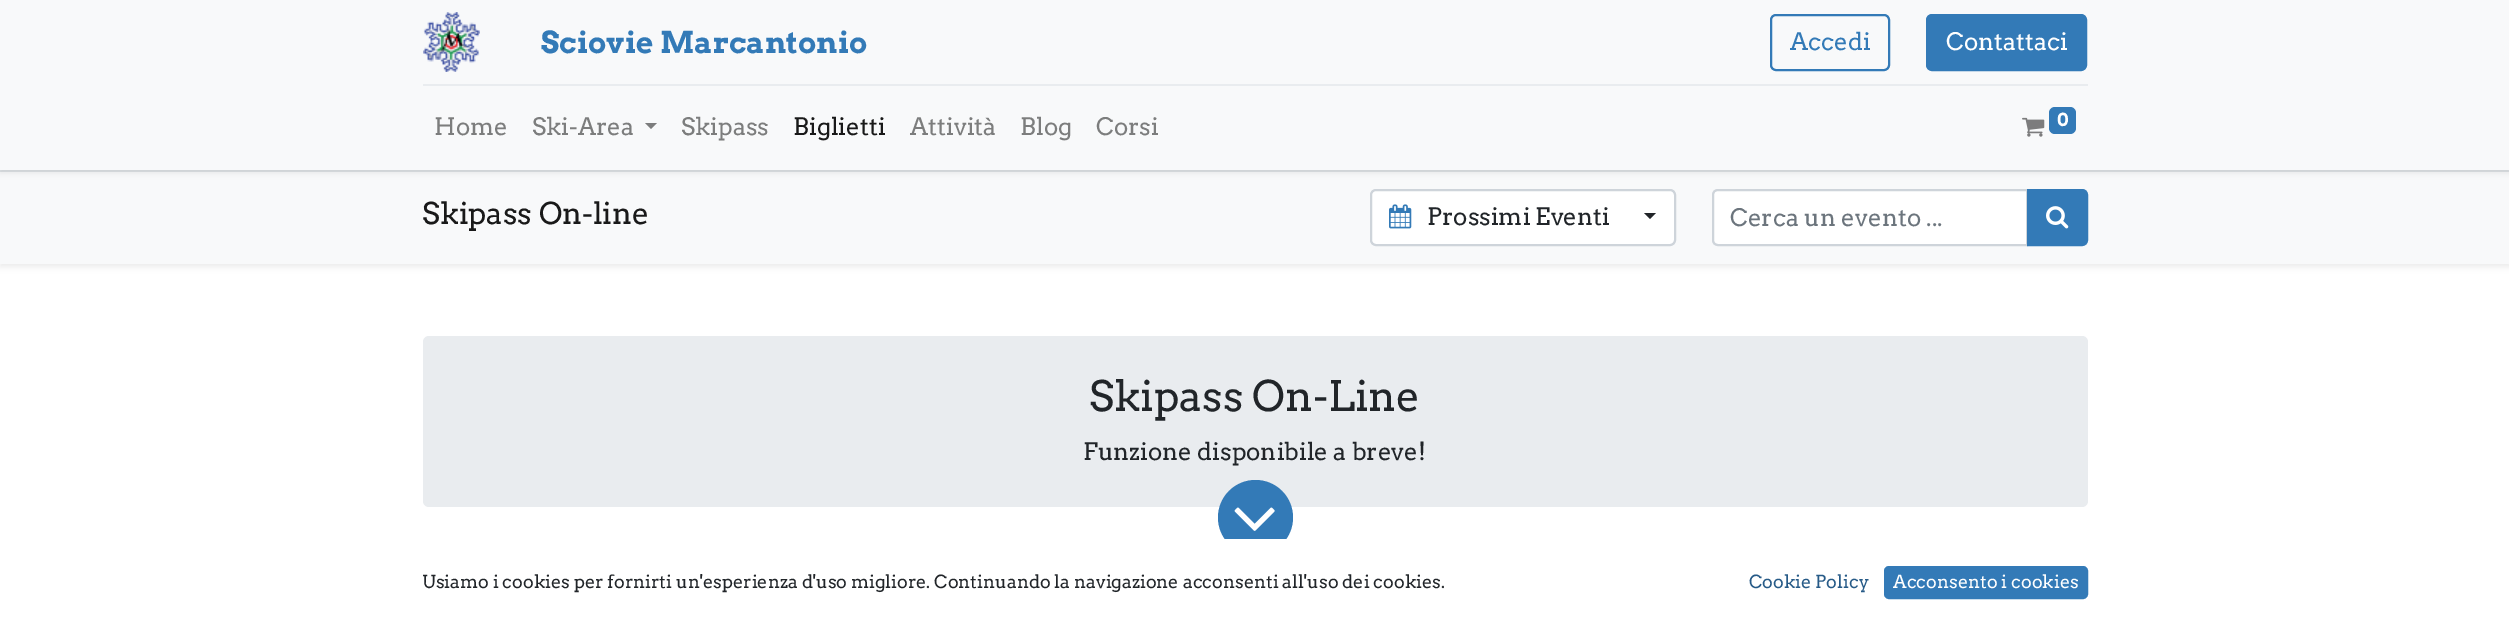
%!PS
<< /PageSize [2509 622] /PageUsesTransparency true >> setpagedevice
/rgb { dup -16 bitshift 255 div exch dup -8 bitshift 255 and 255 div exch 255 and 255 div setrgbcolor } def
/font { [ exch dup neg 0 0 3 -1 roll 0 0 ] selectfont } def
/text { moveto show } def
/alpha { dup .setfillconstantalpha .setstrokeconstantalpha } def
/circle { newpath 0 360 arc closepath } def
/roundrect { 5 dict begin { /r /h /w /y /x } { exch def } forall
  x r add y moveto x w add y 2 copy h add r arct x w add y h add x 1 index r arct
  x y h add x y r arct x y 2 copy exch w add exch r arct closepath end } def
/shadow { 12 dict begin { /a /b /q /h /w /y /x } { exch def } forall gsave /was 0 def
  9 -2 -9 { dup b mul 4 div /e exch def 1 sub .425 mul 2.718 exch exp 1 add a .99 .min exch div /now exch def
    1 1 now sub 1 was sub div sub alpha /was now def
    w h .min e 2 mul add 0 gt { x e sub y e sub w e 2 mul add h e 2 mul add
      q e add b .6 mul add w h .min 2 div e add .min 0 .max roundrect fill } if } for grestore end } def
/picture { 5 dict begin { /h /w /y /x /name } { exch def } forall
  gsave x y translate w h scale
  w h 8 [w 0 0 h 0 0] name (r) file false 3 colorimage grestore end } def
0 .pushpdf14devicefilter
0 622 translate 1 -1 scale
4 setmiterlimit
/s1 { /Arvo-Bold 30 font 16#337AB7 rgb } def
/s2 { /Arvo-Regular 24 font 16#337AB7 rgb } def
/s3 { /Arvo-Regular 24 font 16#FFFFFF rgb } def
/s4 { /Arvo-Regular 24 font 16#7C7D7D rgb } def
/s5 { /Arvo-Regular 24 font 16#191919 rgb } def
/s6 { /Arvo-Bold 18 font 16#FFFFFF rgb } def
/s7 { /Arvo-Regular 30 font 16#191919 rgb } def
/s8 { /Arvo-Regular 24 font 16#212529 rgb } def
/s9 { /Arvo-Regular 24 font 16#6C757D rgb } def
/s10 { /Arvo-Regular 42 font 16#212529 rgb } def
/s11 { /Arvo-Regular 18 font 16#212529 rgb } def
/s12 { /Arvo-Regular 18 font 16#265A87 rgb } def
/s13 { /Arvo-Regular 18 font 16#FFFFFF rgb } def
16#FFFFFF rgb
0 0 2509 622 rectfill
16#000000 rgb
0 173 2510 94 0 3 0.07 shadow
16#F8F9FA rgb
0 172 2509 92 rectfill
16#DEE2E6 rgb
0 170 2509 2 rectfill
16#000000 rgb
0 3 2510 170 0 3 0.07 shadow
16#F8F9FA rgb
0 0 2509 170 rectfill
(pic1.raw) 423 12 57 60 picture
s1
(Sciovie Marcantonio) 541 53 text
2 setlinewidth
1771 15 118 55 5 roundrect stroke
s2
(Accedi) 1790 50 text
1927 15 159 55 5 roundrect gsave fill grestore
stroke
s3
(Contattaci) 1946 50 text
16#E9ECEF rgb
423 84 1665 2 rectfill
s4
(Home) 434 135 text
(Ski-Area) 532 135 text
645 123 moveto 657 123 lineto 651 129 lineto closepath fill
(Skipass) 681 135 text
s5
(Biglietti) 793 135 text
s4
(Attività) 910 135 text
(Blog) 1020 135 text
(Corsi) 1096 135 text
(pic2.raw) 2022 117 23 20 picture
16#337AB7 rgb
2049 107 27 27 6 roundrect fill
s6
(0) 2057 126 text
s7
(Skipass On-line) 422 224 text
16#FFFFFF rgb
1371 190 304 55 5 roundrect gsave fill grestore
16#CED4DA rgb
stroke
(pic3.raw) 1389 204 23 25 picture
s8
(Prossimi Eventi) 1427 225 text
1644 213 moveto 1656 213 lineto 1650 219 lineto closepath fill
16#FFFFFF rgb
1718 190 moveto 2027 190 lineto 2027 245 lineto 1718 245 lineto 1715 245 1713 243 1713 240 curveto 1713 195 lineto 1713 192 1715 190 1718 190 curveto closepath gsave fill grestore
16#CED4DA rgb
stroke
s9
(Cerca un evento ...) 1730 226 text
16#337AB7 rgb
2028 190 moveto 2082 190 lineto 2085 190 2087 192 2087 195 curveto 2087 240 lineto 2087 243 2085 245 2082 245 curveto 2028 245 lineto closepath gsave fill grestore
stroke
(pic4.raw) 2046 206 23 23 picture
16#E9ECEF rgb
423 336 1665 171 6 roundrect fill
s10
(Skipass On-Line) 1089 411 text
s8
(Funzione disponibile a breve!) 1083 460 text
16#337AB7 rgb
1255.5 517.5 37.5 circle fill
(pic5.raw) 1234 507 41 24 picture
16#FFFFFF rgb
1224 539 63 16 rectfill
s11
(Usiamo i cookies per fornirti un'esperienza d'uso migliore. Continuando la navigazione acconsenti all'uso dei cookies.) 422 588 text
s12
(Cookie Policy) 1749 588 text
16#337AB7 rgb
1885 567 202 31 4 roundrect gsave fill grestore
stroke
s13
(Acconsento i cookies) 1893 588 text
.poppdf14devicefilter showpage
